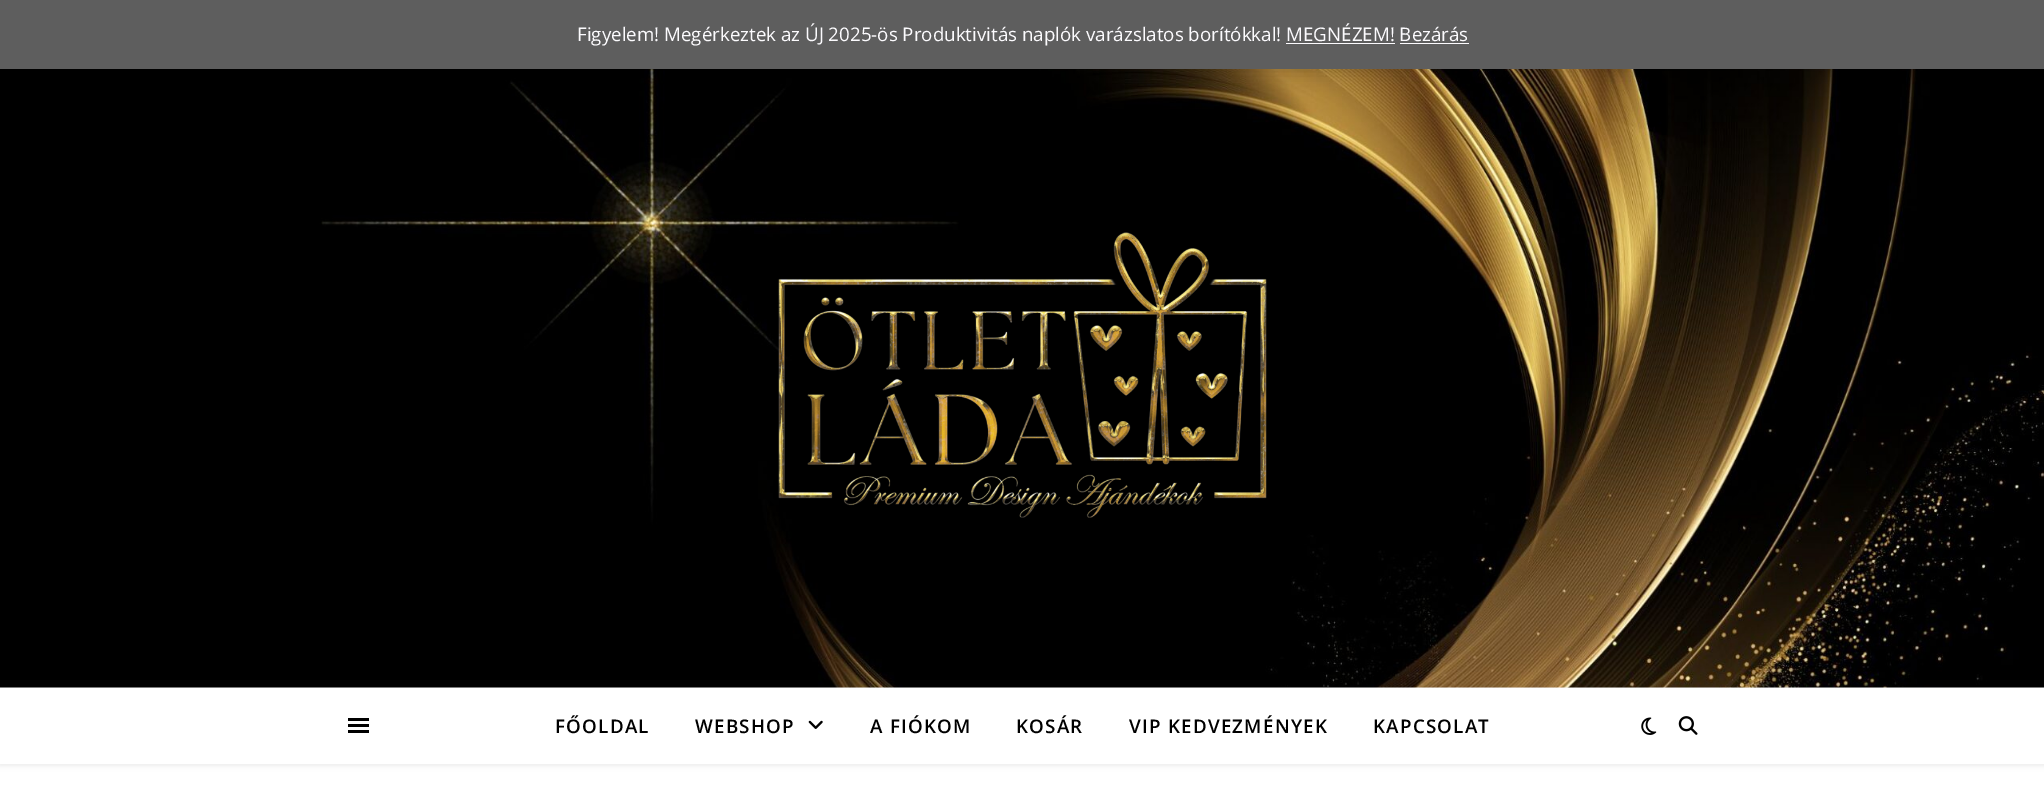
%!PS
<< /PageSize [2044 807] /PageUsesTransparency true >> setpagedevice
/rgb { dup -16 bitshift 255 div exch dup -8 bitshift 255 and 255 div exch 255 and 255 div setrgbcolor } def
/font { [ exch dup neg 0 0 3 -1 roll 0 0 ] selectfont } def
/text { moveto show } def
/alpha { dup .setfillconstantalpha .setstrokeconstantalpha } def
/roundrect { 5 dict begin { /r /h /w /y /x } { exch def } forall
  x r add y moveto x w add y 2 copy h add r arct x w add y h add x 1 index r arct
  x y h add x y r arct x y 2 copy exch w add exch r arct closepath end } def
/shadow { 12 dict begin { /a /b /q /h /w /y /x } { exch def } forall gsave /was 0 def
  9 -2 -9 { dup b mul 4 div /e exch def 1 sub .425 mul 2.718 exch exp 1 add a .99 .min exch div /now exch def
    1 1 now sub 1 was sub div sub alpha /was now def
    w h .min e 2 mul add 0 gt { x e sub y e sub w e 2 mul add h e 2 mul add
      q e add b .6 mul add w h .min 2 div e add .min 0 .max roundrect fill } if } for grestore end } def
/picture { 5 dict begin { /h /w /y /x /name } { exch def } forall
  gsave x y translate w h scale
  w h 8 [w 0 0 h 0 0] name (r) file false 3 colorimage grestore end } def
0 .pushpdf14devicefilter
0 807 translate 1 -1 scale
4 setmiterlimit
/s1 { /OpenSans-Regular 18.75 font 16#FCFBFE rgb } def
16#FFFFFF rgb
0 0 2044 807 rectfill
(pic1.raw) 0 69 2044 619 picture
16#000000 rgb
0 1 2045 69 0 9.5 0.2 shadow
16#5E5E5E rgb
0 0 2044 69 rectfill
s1
(Figyelem! Megérkeztek az ÚJ 2025-ös Produktivitás naplók varázslatos borítókkal! MEGNÉZEM! Bezárás) 577 41 text
1286 43 109 1 rectfill
1400 43 69 1 rectfill
(pic2.raw) 778 232 489 286 picture
16#000000 rgb
0 689 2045 76 0 3 0.1 shadow
16#FFFFFF rgb
0 688 2044 76 rectfill
16#000000 rgb
348 718 21 3 rectfill
348 724 21 3 rectfill
348 730 21 3 rectfill
/OpenSans-SemiBold 18.75 font
555 733 moveto 1.25 0 (FŐOLDAL) ashow
695 733 moveto 1.25 0 (WEBSHOP) ashow
(pic3.raw) 808 720 15 9 picture
870 733 moveto 1.25 0 (A FIÓKOM) ashow
1016 733 moveto 1.25 0 (KOSÁR) ashow
1129 733 moveto 1.25 0 (VIP KEDVEZMÉNYEK) ashow
1373 733 moveto 1.25 0 (KAPCSOLAT) ashow
(pic4.raw) 1641 717 16 18 picture
(pic5.raw) 1678 716 20 19 picture
.poppdf14devicefilter showpage
